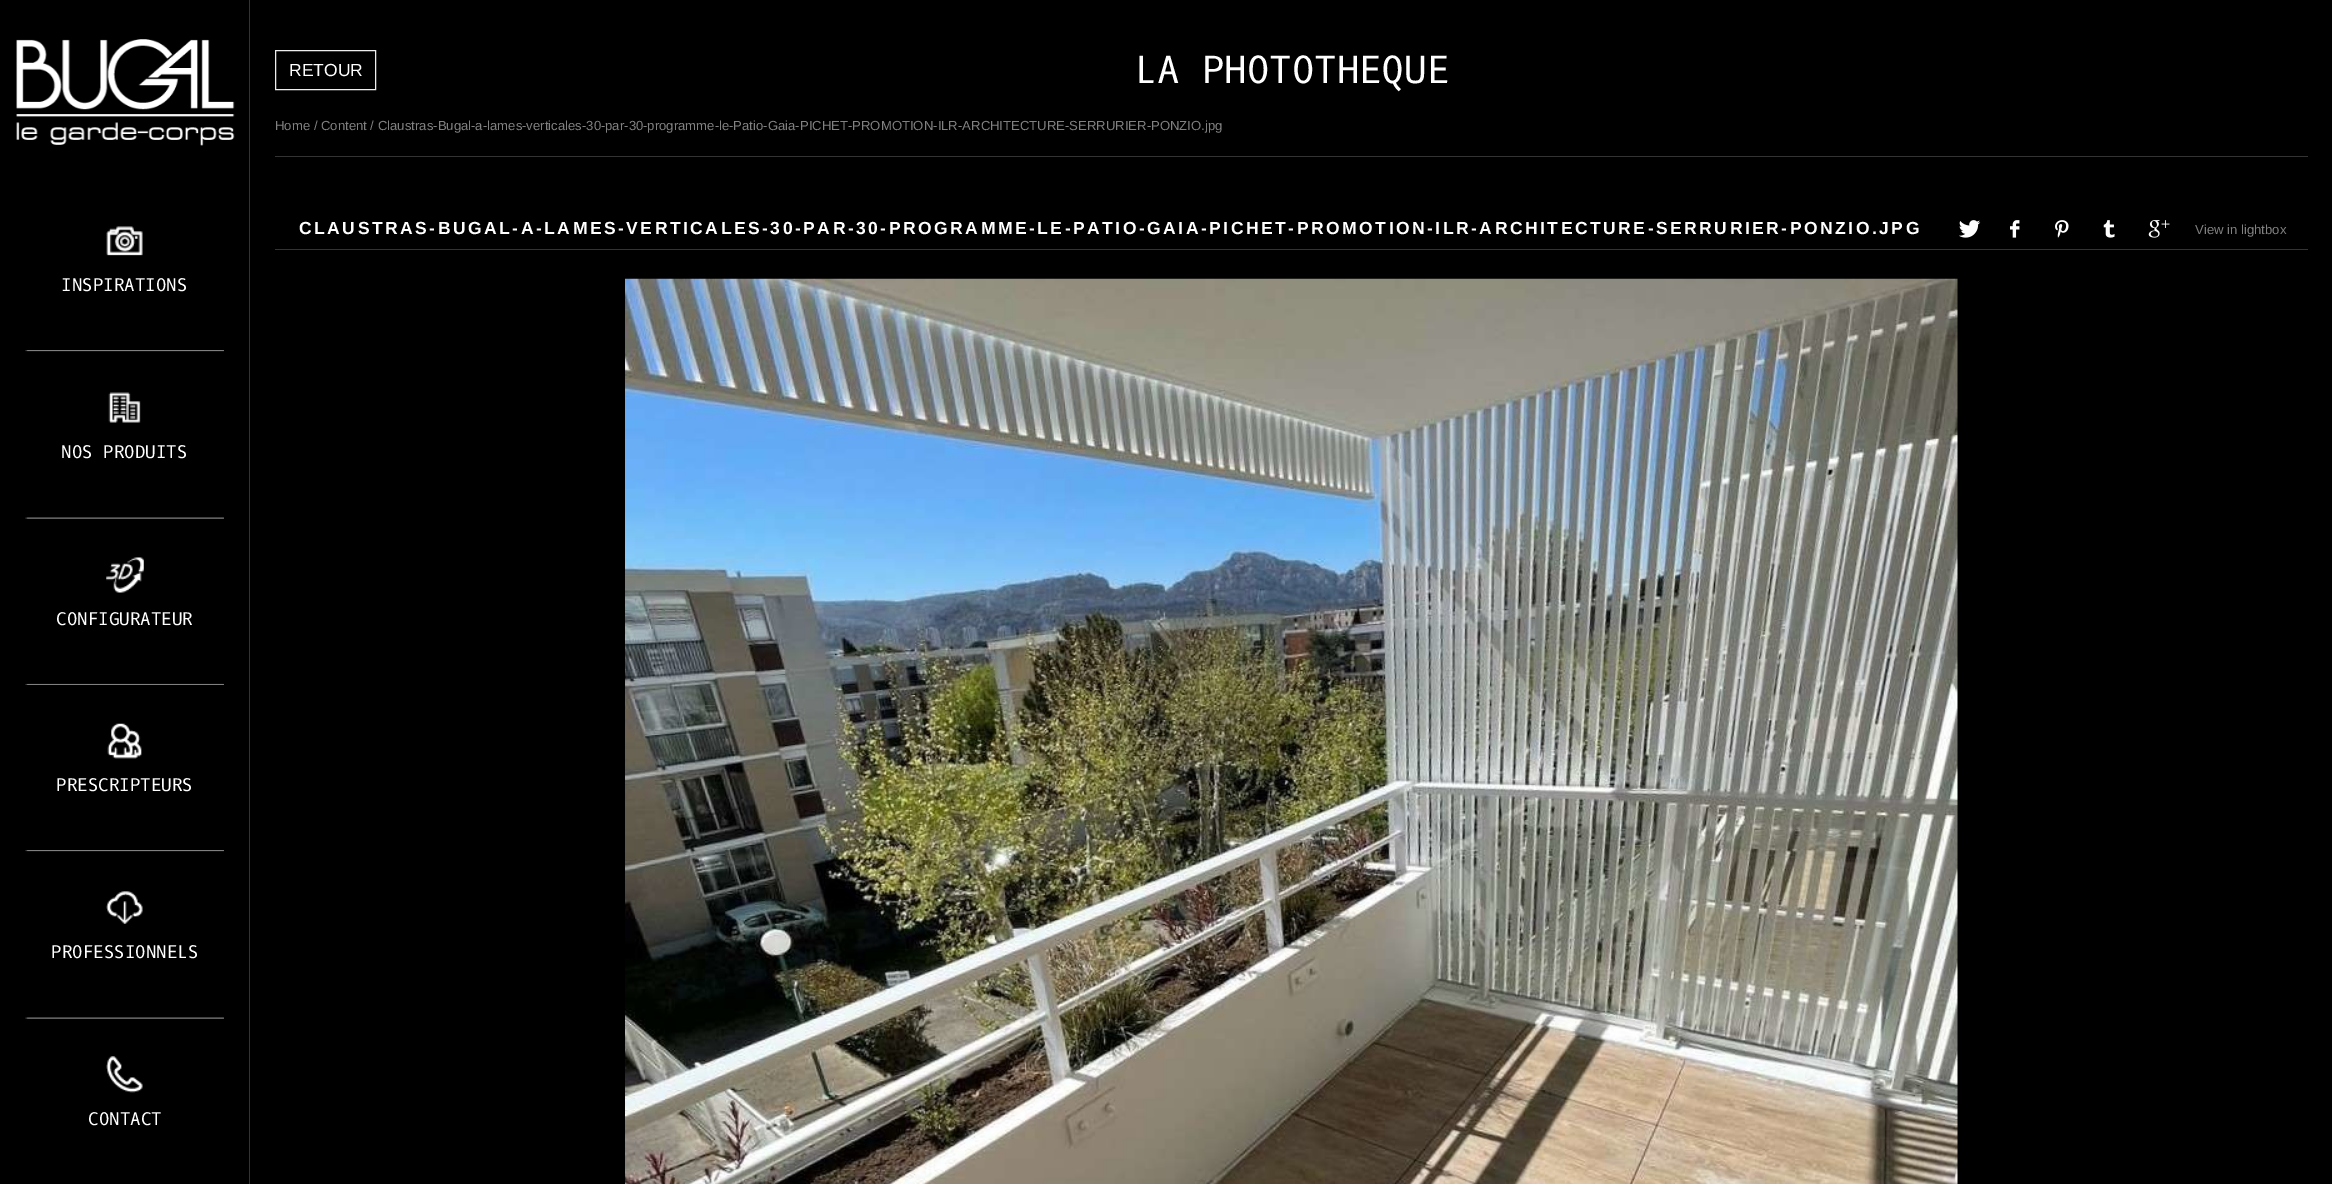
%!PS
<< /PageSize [2332 1184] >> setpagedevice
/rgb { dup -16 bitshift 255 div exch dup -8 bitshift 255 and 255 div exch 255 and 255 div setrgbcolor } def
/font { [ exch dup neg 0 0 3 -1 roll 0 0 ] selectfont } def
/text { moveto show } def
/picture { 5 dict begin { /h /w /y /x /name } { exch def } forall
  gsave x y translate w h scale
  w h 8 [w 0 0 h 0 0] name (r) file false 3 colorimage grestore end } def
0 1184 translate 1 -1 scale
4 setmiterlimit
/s1 { /LiberationSans-Regular 17.5 font 16#FFFFFF rgb } def
/s2 { /OxygenMono-Regular 37.5 font 16#FFFFFF rgb } def
/s3 { /OxygenMono-Regular 17.5 font 16#FFFFFF rgb } def
/s4 { /LiberationSans-Regular 13.12 font 16#818181 rgb } def
16#000000 rgb
0 0 2332 1184 rectfill
16#EEEEEE rgb
275.5 50.5 100 39 rectstroke
s1
(RETOUR) 289 76 text
s2
(LA PHOTOTHEQUE) 1134 83 text
16#333333 rgb
249 0 1 1184 rectfill
(pic1.raw) 16 39 219 107 picture
(pic2.raw) 25 350 199 2 picture
(pic3.raw) 106 226 37 30 picture
s3
(INSPIRATIONS) 61 291 text
(pic4.raw) 25 517 199 2 picture
(pic5.raw) 108 392 33 31 picture
(NOS PRODUITS) 61 458 text
(pic6.raw) 25 683 199 2 picture
(pic7.raw) 106 557 38 36 picture
(CONFIGURATEUR) 56 625 text
(pic2.raw) 25 850 199 2 picture
(pic8.raw) 107 723 35 36 picture
(PRESCRIPTEURS) 56 791 text
(pic4.raw) 25 1017 199 2 picture
(pic9.raw) 106 891 37 33 picture
(PROFESSIONNELS) 51 958 text
(pic10.raw) 106 1056 37 37 picture
(CONTACT) 88 1125 text
16#333333 rgb
275 156 2033 1 rectfill
s4
(Home / Content / Claustras-Bugal-a-lames-verticales-30-par-30-programme-le-Patio-Gaia-PICHET-PROMOTION-ILR-ARCHITECTURE-SERRURIER-PONZIO.jpg) 275 130 text
16#333333 rgb
275 249 2033 1 rectfill
/LiberationSans-Bold 17.5 font
16#FFFFFF rgb
299 234 moveto 2.5 0 (CLAUSTRAS-BUGAL-A-LAMES-VERTICALES-30-PAR-30-PROGRAMME-LE-PATIO-GAIA-PICHET-PROMOTION-ILR-ARCHITECTURE-SERRURIER-PONZIO.JPG) ashow
(pic11.raw) 1959 220 22 18 picture
(pic12.raw) 2010 220 10 18 picture
(pic13.raw) 2055 220 14 18 picture
(pic14.raw) 2103 220 12 18 picture
(pic15.raw) 2148 220 22 18 picture
s4
(View in lightbox) 2195 234 text
(pic16.raw) 625 278 1333 906 picture
showpage
